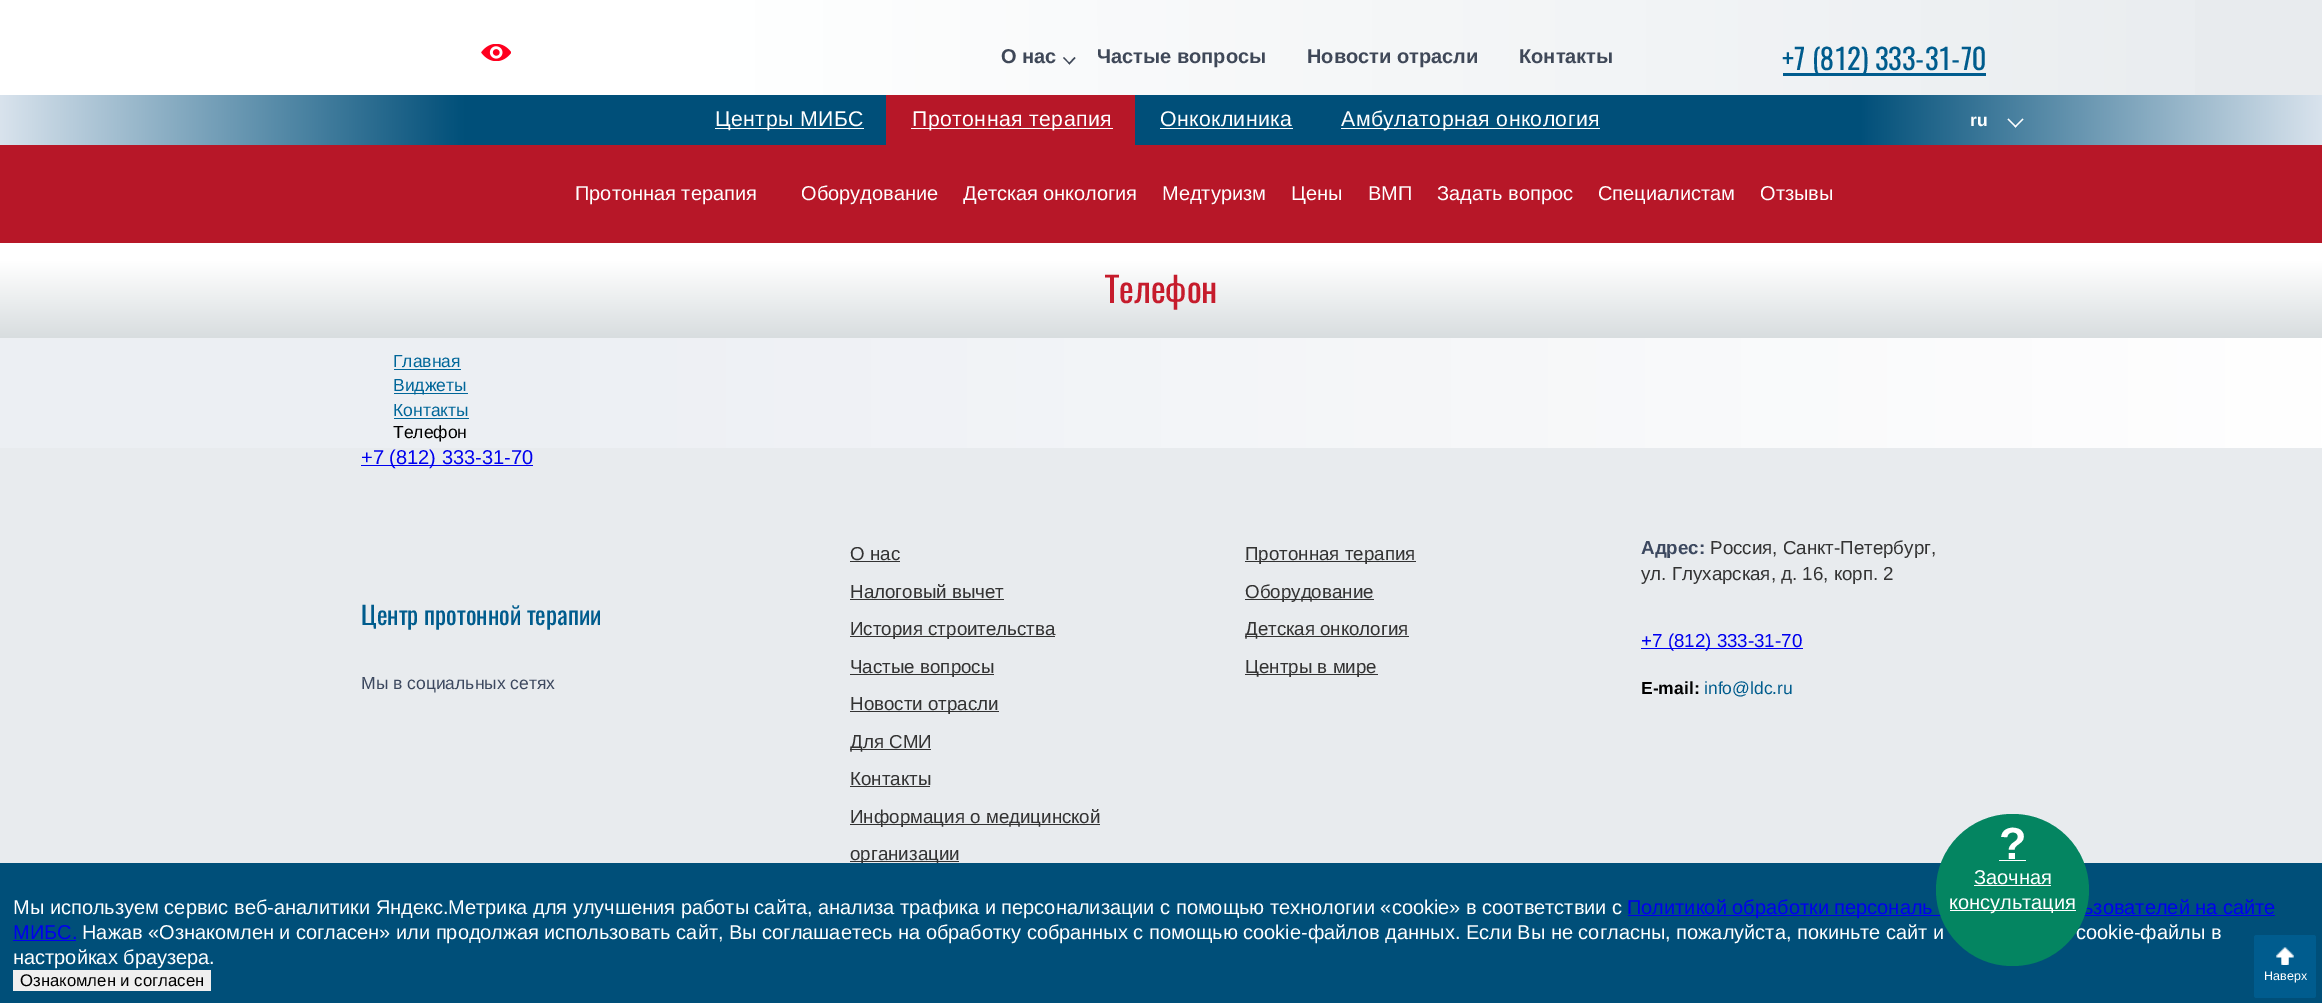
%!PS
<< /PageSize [2322 1003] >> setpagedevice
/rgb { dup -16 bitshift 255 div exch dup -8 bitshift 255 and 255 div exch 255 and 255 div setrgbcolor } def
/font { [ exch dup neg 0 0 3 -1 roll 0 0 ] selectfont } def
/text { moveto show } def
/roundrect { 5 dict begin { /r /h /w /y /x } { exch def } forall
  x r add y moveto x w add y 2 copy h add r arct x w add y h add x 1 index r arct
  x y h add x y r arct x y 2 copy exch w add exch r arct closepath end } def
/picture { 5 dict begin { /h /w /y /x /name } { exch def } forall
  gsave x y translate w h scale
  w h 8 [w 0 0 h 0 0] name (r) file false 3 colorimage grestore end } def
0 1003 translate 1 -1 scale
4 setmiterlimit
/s1 { /LiberationSans-Bold 20 font 16#3F4858 rgb } def
/s2 { /Oswald-Regular 28.75 font 16#005C8D rgb } def
/s3 { /LiberationSans-Bold 17.5 font 16#FFFFFF rgb } def
/s4 { /LiberationSans-Regular 20 font 16#FFFFFF rgb } def
/s5 { /Oswald-Regular 35 font 16#C61C2C rgb } def
/s6 { /LiberationSans-Regular 17.5 font 16#006699 rgb } def
/s7 { /LiberationSans-Regular 17.5 font 16#000000 rgb } def
/s8 { /LiberationSans-Regular 20 font 16#0000EE rgb } def
/s9 { /Oswald-Regular 25 font 16#005C8D rgb } def
/s10 { /LiberationSans-Regular 17.5 font 16#3C485F rgb } def
/s11 { /LiberationSans-Regular 18.75 font 16#333333 rgb } def
/s12 { /LiberationSans-Bold 18.75 font 16#3C485F rgb } def
/s13 { /LiberationSans-Regular 18.75 font 16#0000EE rgb } def
/s14 { /LiberationSans-Bold 17.5 font 16#000000 rgb } def
/s15 { /LiberationSans-Regular 17.5 font 16#005C8D rgb } def
/s16 { /LiberationSans-Regular 12.5 font 16#FFFFFF rgb } def
/s17 { /LiberationSans-Bold 45 font 16#FFFFFF rgb } def
/s18 { /LiberationSans-Regular 16.75 font 16#000000 rgb } def
16#E8EBEE rgb
0 0 2322 1003 rectfill
gsave 0 0 moveto 2195 0 lineto 2195 95 lineto 0 95 lineto closepath clip newpath
<< /ShadingType 2 /ColorSpace /DeviceRGB /Coords [0 53 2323 52] /Extend [true true] /Function << /FunctionType 3 /Domain [0 1] /Functions [<< /FunctionType 2 /Domain [0 1] /C0 [1 1 1] /C1 [1 1 1] /N 1 >> << /FunctionType 2 /Domain [0 1] /C0 [1 1 1] /C1 [0.91 0.925 0.937] /N 1 >>] /Bounds [0.3] /Encode [0 1 0 1] >> >> shfill grestore
(pic1.raw) 481 44 30 17 picture
s1
(О нас) 1001 63 text
1074.5 57 moveto 1075.5 58 lineto 1069.5 64.5 lineto 1068.5 63.5 lineto closepath fill
1064 57 moveto 1070 63.5 lineto 1069.5 64.5 lineto 1063 58 lineto closepath fill
(Частые вопросы) 1097 63 text
(Новости отрасли) 1307 63 text
(Контакты) 1519 63 text
16#005C8E rgb
1783 73 203 3 rectfill
s2
(+7 \(812\) 333-31-70) 1782 70 text
gsave 0 95 moveto 2322 95 lineto 2322 145 lineto 0 145 lineto closepath clip newpath
<< /ShadingType 2 /ColorSpace /DeviceRGB /Coords [0 120 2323 120] /Extend [true true] /Function << /FunctionType 3 /Domain [0 1] /Functions [<< /FunctionType 2 /Domain [0 1] /C0 [0.851 0.89 0.929] /C1 [0 0.31 0.475] /N 1 >> << /FunctionType 2 /Domain [0 1] /C0 [0 0.31 0.475] /C1 [0 0.31 0.475] /N 1 >> << /FunctionType 2 /Domain [0 1] /C0 [0 0.31 0.475] /C1 [0.851 0.89 0.929] /N 1 >>] /Bounds [0.2 0.8] /Encode [0 1 0 1 0 1] >> >> shfill grestore
16#FFFFFF rgb
715 128 149 1 rectfill
/LiberationSans-Regular 21.25 font
715 126 moveto 0.4 0 (Центры МИБС) ashow
16#B71728 rgb
886 95 249 50 rectfill
16#FFFFFF rgb
911 128 202 1 rectfill
912 126 moveto 0.4 0 (Протонная терапия) ashow
1160 126 moveto 0.4 0 (Онкоклиника) ashow
1160 128 133 1 rectfill
1341 128 259 1 rectfill
1341 126 moveto 0.4 0 (Амбулаторная онкология) ashow
16#B71728 rgb
0 145 2322 98 rectfill
s3
(ru) 1970 126 text
2022.5 118.5 moveto 2023.5 119.5 lineto 2015.5 127.5 lineto 2014.5 126.5 lineto closepath fill
2008.5 118.5 moveto 2016.5 126.5 lineto 2015.5 127.5 lineto 2007.5 119.5 lineto closepath fill
s4
(Протонная терапия) 575 200 text
(Оборудование) 801 200 text
(Детская онкология) 963 200 text
(Медтуризм) 1162 200 text
(Цены) 1291 200 text
(ВМП) 1368 200 text
(Задать вопрос) 1437 200 text
(Специалистам) 1598 200 text
(Отзывы) 1760 200 text
0 243 2322 18 rectfill
gsave 0 261 moveto 2322 261 lineto 2322 338 lineto 0 338 lineto closepath clip newpath
<< /ShadingType 2 /ColorSpace /DeviceRGB /Coords [1161 261 1161 338] /Extend [true true] /Function << /FunctionType 2 /Domain [0 1] /C0 [1 1 1] /C1 [0.847 0.867 0.875] /N 1 >> >> shfill grestore
s5
(Телефон) 1105 303 text
gsave 0 338 moveto 2322 338 lineto 2322 448 lineto 0 448 lineto closepath clip newpath
<< /ShadingType 2 /ColorSpace /DeviceRGB /Coords [0 392 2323 392] /Extend [true true] /Function << /FunctionType 3 /Domain [0 1] /Functions [<< /FunctionType 2 /Domain [0 1] /C0 [0.925 0.937 0.953] /C1 [0.925 0.937 0.953] /N 1 >> << /FunctionType 2 /Domain [0 1] /C0 [0.925 0.937 0.953] /C1 [1 1 1] /N 1 >>] /Bounds [0.2] /Encode [0 1 0 1] >> >> shfill grestore
s6
(Главная) 393 367 text
394 369 67 1 rectfill
394 393 74 1 rectfill
(Виджеты) 393 391 text
(Контакты) 393 416 text
394 418 75 1 rectfill
s7
(Телефон) 393 438 text
16#0000EE rgb
361 465 172 1 rectfill
s8
(+7 \(812\) 333-31-70) 361 464 text
s9
(Центр протонной терапии) 361 625 text
s10
(Мы в социальных сетях) 361 689 text
s11
(О нас) 850 560 text
850 561 50 1 rectfill
(Налоговый вычет) 850 598 text
850 599 154 1 rectfill
850 636 205 1 rectfill
(История строительства) 850 635 text
850 674 144 1 rectfill
(Частые вопросы) 850 673 text
850 711 149 1 rectfill
(Новости отрасли) 850 710 text
850 749 81 1 rectfill
(Для СМИ) 850 748 text
(Контакты) 850 785 text
850 786 80 1 rectfill
850 824 250 1 rectfill
(Информация о медицинской) 850 823 text
850 861 109 1 rectfill
(организации) 850 860 text
1245 561 171 1 rectfill
(Протонная терапия) 1245 560 text
1245 599 129 1 rectfill
(Оборудование) 1245 598 text
1245 636 164 1 rectfill
(Детская онкология) 1245 635 text
1245 674 133 1 rectfill
(Центры в мире) 1245 673 text
s12
(Адрес:) 1641 554 text
s11
(Россия, Санкт-Петербург,) 1710 554 text
(ул. Глухарская, д. 16, корп. 2) 1641 580 text
16#0000EE rgb
1641 648 162 1 rectfill
(+7 \(812\) 333-31-70) 1641 647 text
s14
(E-mail:) 1641 694 text
s15
(info@ldc.ru) 1704 694 text
16#004F79 rgb
0 863 2322 140 rectfill
16#005C8E rgb
2254 935 62 63 2.5 roundrect fill
(pic2.raw) 2276 947 18 18 picture
s16
(Наверх) 2264 980 text
16#0000EE rgb
1628 915 647 1 rectfill
s8
(ьзователей на сайте) 2083 914 text
s4
(Нажав «Ознакомлен и согласен» или продолжая использовать сайт, Вы соглашаетесь на обработку собранных с помощью cookie-файлов данных. Если Вы не согласны, пожалуйста, покиньте сайт и) 82 939 text
(cookie-файлы в) 2076 939 text
16#048561 rgb
1936 814 153 152 76 roundrect fill
s17
(?) 1999 859 text
1999 860 27 1 rectfill
s4
(Заочная) 1974 884 text
1974 885 77 1 rectfill
1950 910 126 1 rectfill
(консультация) 1949 909 text
(Мы используем сервис веб-аналитики Яндекс.Метрика для улучшения работы сайта, анализа трафика и персонализации с помощью технологии «cookie» в соответствии с) 13 914 text
s8
(Политикой обработки персональ) 1627 914 text
(МИБС.) 13 939 text
13 940 63 1 rectfill
s4
(настройках браузера.) 13 964 text
16#EFEFEF rgb
13 970 198 21 rectfill
s18
(Ознакомлен и согласен) 20 986 text
showpage
